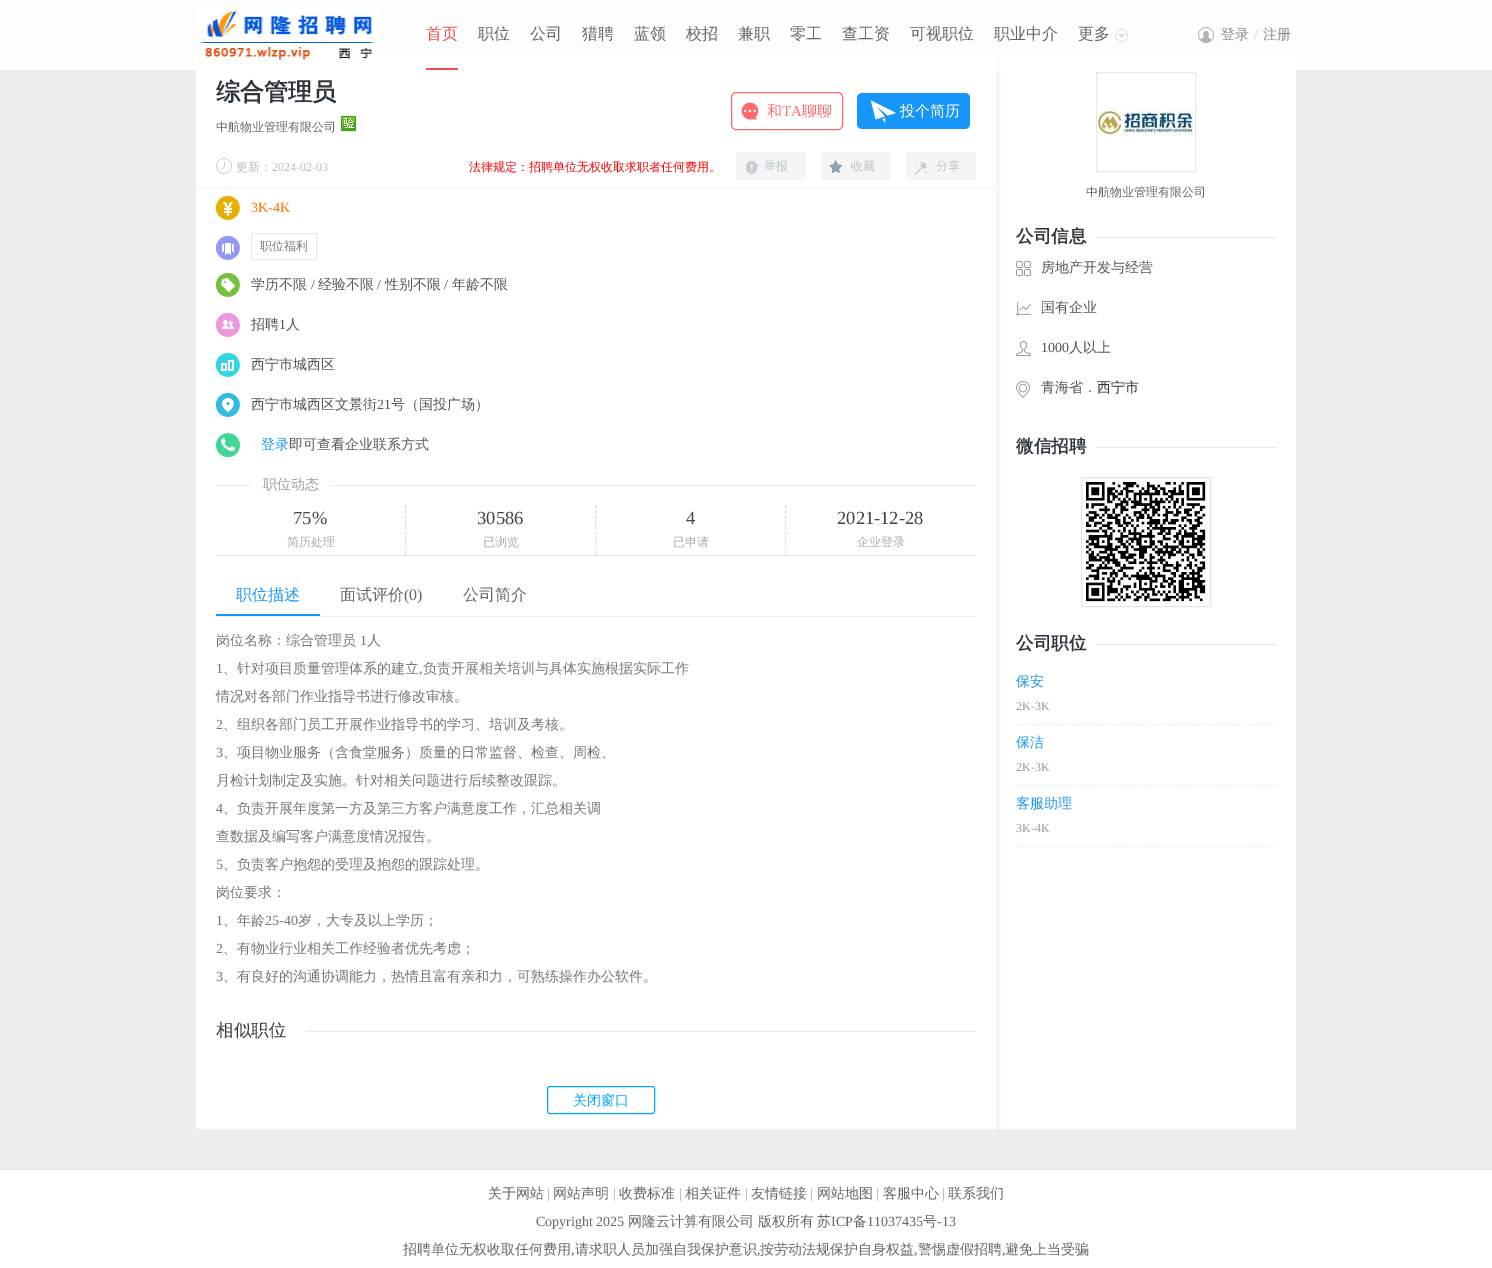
%!PS
<< /PageSize [1492 1268] /PageUsesTransparency true >> setpagedevice
/rgb { dup -16 bitshift 255 div exch dup -8 bitshift 255 and 255 div exch 255 and 255 div setrgbcolor } def
/font { [ exch dup neg 0 0 3 -1 roll 0 0 ] selectfont } def
/text { moveto show } def
/alpha { dup .setfillconstantalpha .setstrokeconstantalpha } def
/roundrect { 5 dict begin { /r /h /w /y /x } { exch def } forall
  x r add y moveto x w add y 2 copy h add r arct x w add y h add x 1 index r arct
  x y h add x y r arct x y 2 copy exch w add exch r arct closepath end } def
/picture { 5 dict begin { /h /w /y /x /name } { exch def } forall
  gsave x y translate w h scale
  w h 8 [w 0 0 h 0 0] name (r) file false 3 colorimage grestore end } def
0 .pushpdf14devicefilter
0 1268 translate 1 -1 scale
4 setmiterlimit
/s1 { /WenQuanYiZenHei-Medium 16 font 16#EE4E4E rgb } def
/s2 { /WenQuanYiZenHei-Medium 16 font 16#666666 rgb } def
/s3 { /WenQuanYiZenHei-Medium 14 font 16#888888 rgb } def
/s4 { /LiberationSerif-Regular 14 font 16#CCCCCC rgb } def
/s5 { /WenQuanYiZenHei-Bold 24 font 16#2E343B rgb } def
/s6 { /WenQuanYiZenHei-Medium 12 font 16#666666 rgb } def
/s7 { /WenQuanYiZenHei-Medium 15 font 16#FF6A6A rgb } def
/s8 { /LiberationSerif-Regular 15 font 16#FF6A6A rgb } def
/s9 { /WenQuanYiZenHei-Medium 15 font 16#FFFFFF rgb } def
/s10 { /WenQuanYiZenHei-Medium 12 font 16#BBBBBB rgb } def
/s11 { /LiberationSerif-Regular 12 font 16#BBBBBB rgb } def
/s12 { /WenQuanYiZenHei-Medium 12 font 16#FF0000 rgb } def
/s13 { /WenQuanYiZenHei-Medium 12 font 16#B8C3CC rgb } def
/s14 { /LiberationSerif-Regular 14 font 16#FF7700 rgb } def
/s15 { /WenQuanYiZenHei-Medium 12 font 16#777777 rgb } def
/s16 { /WenQuanYiZenHei-Medium 14 font 16#555555 rgb } def
/s17 { /LiberationSerif-Regular 14 font 16#555555 rgb } def
/s18 { /WenQuanYiZenHei-Medium 14 font 16#1696F9 rgb } def
/s19 { /WenQuanYiZenHei-Medium 14 font 16#999999 rgb } def
/s20 { /LiberationSerif-Regular 18.5 font 16#444444 rgb } def
/s21 { /WenQuanYiZenHei-Medium 12 font 16#AAAAAA rgb } def
/s22 { /WenQuanYiZenHei-Medium 16 font 16#1696F9 rgb } def
/s23 { /LiberationSerif-Regular 16 font 16#666666 rgb } def
/s24 { /WenQuanYiZenHei-Medium 14 font 16#777777 rgb } def
/s25 { /LiberationSerif-Regular 14 font 16#777777 rgb } def
/s26 { /WenQuanYiZenHei-Medium 17.5 font 16#2E343B rgb } def
/s27 { /WenQuanYiZenHei-Bold 17.5 font 16#2E343B rgb } def
/s28 { /WenQuanYiZenHei-Medium 14 font 16#333333 rgb } def
/s29 { /LiberationSerif-Regular 12 font 16#999999 rgb } def
/s30 { /WenQuanYiZenHei-Medium 14 font 16#00AAFF rgb } def
/s31 { /WenQuanYiZenHei-Medium 14 font 16#666666 rgb } def
/s32 { /LiberationSerif-Regular 14 font 16#AAAAAA rgb } def
/s33 { /LiberationSerif-Regular 14 font 16#666666 rgb } def
16#EEEEEE rgb
0 0 1492 1268 rectfill
16#FFFFFF rgb
0 0 1492 2 rectfill
196 52 1100 1077 rectfill
(pic4.raw) 996 52 5 1019 picture
0.9 alpha
0 2 1492 68 rectfill
1 alpha
(pic1.raw) 196 5 183 56 picture
16#EE4E4E rgb
426 68 32 2 rectfill
s1
(首页) 426 39 text
s2
(职位) 478 39 text
(公司) 530 39 text
(猎聘) 582 39 text
(蓝领) 634 39 text
(校招) 686 39 text
(兼职) 738 39 text
(零工) 790 39 text
(查工资) 842 39 text
(可视职位) 910 39 text
(职业中介) 994 39 text
(pic2.raw) 1115 29 13 13 picture
(更多) 1078 39 text
(pic3.raw) 1198 27 16 16 picture
s3
(登录) 1221 39 text
s4
(/) 1254 39 text
s3
(注册) 1263 39 text
s5
(综合管理员) 216 100 text
s6
(中航物业管理有限公司) 216 131 text
(pic5.raw) 341 116 15 15 picture
(pic6.raw) 741 102 18 18 picture
16#FF6A6A rgb
731.5 92.5 111 37 4.5 roundrect stroke
s7
(和) 767 116 text
s8
(TA) 782 116 text
s7
(聊聊) 802 116 text
16#1696F9 rgb
857 93 113 36 5 roundrect fill
(pic7.raw) 870 100 26 23 picture
s9
(投个简历) 900 116 text
16#EEEEEE rgb
196 187 800 1 rectfill
(pic8.raw) 216 158 16 16 picture
s10
(更新：) 236 171 text
s11
(2024-02-03) 272 171 text
s12
(法律规定：招聘单位无权收取求职者任何费用。) 469 171 text
16#F5F5F5 rgb
736 152 70 28 rectfill
(pic9.raw) 746 161 12 14 picture
s13
(举报) 764 170 text
16#F5F5F5 rgb
821 152 70 28 rectfill
(pic10.raw) 829 160 13 13 picture
s13
(收藏) 851 170 text
16#F5F5F5 rgb
906 152 70 28 rectfill
(pic11.raw) 915 162 12 13 picture
s13
(分享) 936 170 text
(pic12.raw) 216 196 24 24 picture
s14
(3K-4K) 251 212 text
(pic13.raw) 216 236 24 24 picture
16#E8E8E8 rgb
251.5 233.5 65 26 rectstroke
s15
(职位福利) 260 250 text
(pic14.raw) 216 273 24 24 picture
s16
(学历不限) 251 289 text
s17
(/) 311 289 text
s16
(经验不限) 318 289 text
s17
(/) 377 289 text
s16
(性别不限) 385 289 text
s17
(/) 444 289 text
s16
(年龄不限) 452 289 text
(pic15.raw) 216 313 24 24 picture
(招聘) 251 329 text
s17
(1) 279 329 text
s16
(人) 286 329 text
(pic16.raw) 216 353 24 24 picture
(西宁市城西区) 251 369 text
(pic17.raw) 216 393 24 24 picture
(西宁市城西区文景街) 251 409 text
s17
(21) 377 409 text
s16
(号（国投广场）) 391 409 text
(pic18.raw) 216 433 24 24 picture
s18
(登录) 261 449 text
s16
(即可查看企业联系方式) 289 449 text
16#E8E8E8 rgb
216 555 760 1 rectfill
216 485 760 1 rectfill
16#FFFFFF rgb
251 485 80 1 rectfill
s19
(职位动态) 263 489 text
16#DDDDDD rgb
[3 2.22] 0 setdash
405.5 505 moveto 405.5 555 lineto stroke
s20
(75%) 293 524 text
s21
(简历处理) 287 546 text
16#DDDDDD rgb
595.5 505 moveto 595.5 555 lineto stroke
s20
(30586) 477 524 text
s21
(已浏览) 483 546 text
16#DDDDDD rgb
785.5 505 moveto 785.5 555 lineto stroke
s20
(4) 686 524 text
s21
(已申请) 673 546 text
s20
(2021-12-28) 837 524 text
s21
(企业登录) 857 546 text
16#EEEEEE rgb
216 616 760 1 rectfill
16#1696F9 rgb
216 614 104 2 rectfill
s22
(职位描述) 236 600 text
s2
(面试评价) 340 600 text
s23
(\(0\)) 404 600 text
s2
(公司简介) 463 600 text
s24
(岗位名称：综合管理员) 216 645 text
s25
(1) 360 645 text
s24
(人) 367 645 text
s25
(1) 216 673 text
s24
(、针对项目质量管理体系的建立) 223 673 text
(负责开展相关培训与具体实施根据实际工作) 423 673 text
s25
(,) 419 673 text
s24
(情况对各部门作业指导书进行修改审核。) 216 701 text
s25
(2) 216 729 text
s24
(、组织各部门员工开展作业指导书的学习、培训及考核。) 223 729 text
s25
(3) 216 757 text
s24
(、项目物业服务（含食堂服务）质量的日常监督、检查、周检、) 223 757 text
(月检计划制定及实施。针对相关问题进行后续整改跟踪。) 216 785 text
s25
(4) 216 813 text
s24
(、负责开展年度第一方及第三方客户满意度工作，汇总相关调) 223 813 text
(查数据及编写客户满意度情况报告。) 216 841 text
s25
(5) 216 869 text
s24
(、负责客户抱怨的受理及抱怨的跟踪处理。) 223 869 text
(岗位要求：) 216 897 text
s25
(1) 216 925 text
s24
(、年龄) 223 925 text
s25
(25-40) 265 925 text
s24
(岁，大专及以上学历；) 298 925 text
s25
(2) 216 953 text
s24
(、有物业行业相关工作经验者优先考虑；) 223 953 text
s25
(3) 216 981 text
s24
(、有良好的沟通协调能力，热情且富有亲和力，可熟练操作办公软件。) 223 981 text
16#E8E8E8 rgb
306 1031 670 1 rectfill
s26
(相似职位) 216 1036 text
16#E8E8E8 rgb
[] 0 setdash
1096.5 72.5 99 99 rectstroke
(pic19.raw) 1097 104 98 32 picture
s6
(中航物业管理有限公司) 1086 196 text
16#E8E8E8 rgb
1096 237 180 1 rectfill
s27
(公司信息) 1016 242 text
(pic20.raw) 1016 261 15 15 picture
s16
(房地产开发与经营) 1041 272 text
(pic21.raw) 1016 302 15 14 picture
(国有企业) 1041 312 text
(pic22.raw) 1016 341 15 15 picture
s17
(1000) 1041 352 text
s16
(人以上) 1069 352 text
(pic23.raw) 1016 381 14 17 picture
(青海省．) 1041 392 text
s28
(西宁市) 1097 392 text
16#E8E8E8 rgb
1096 447 180 1 rectfill
s27
(微信招聘) 1016 452 text
16#E5E5E5 rgb
1081.5 477.5 129 129 rectstroke
(pic24.raw) 1086 482 120 120 picture
16#E8E8E8 rgb
1096 644 180 1 rectfill
s27
(公司职位) 1016 649 text
16#EEEEEE rgb
[3 2.04] 0 setdash
1016 724.5 moveto 1276 724.5 lineto stroke
s18
(保安) 1016 686 text
s29
(2K-3K) 1016 710 text
16#EEEEEE rgb
1016 785.5 moveto 1276 785.5 lineto stroke
s18
(保洁) 1016 747 text
s29
(2K-3K) 1016 771 text
16#EEEEEE rgb
1016 846.5 moveto 1276 846.5 lineto stroke
s18
(客服助理) 1016 808 text
s29
(3K-4K) 1016 832 text
(pic25.raw) 996 1071 5 58 picture
16#00AAFF rgb
[] 0 setdash
547.5 1086.5 107 27 2.5 roundrect stroke
s30
(关闭窗口) 573 1105 text
16#FFFFFF rgb
0 1170 1492 98 rectfill
16#DDDDDD rgb
0 1169 1492 1 rectfill
s31
(关于网站) 488 1198 text
s32
(|) 547 1198 text
s31
(网站声明) 553 1198 text
s32
(|) 613 1198 text
s31
(收费标准) 619 1198 text
s32
(|) 679 1198 text
s31
(相关证件) 685 1198 text
s32
(|) 745 1198 text
s31
(友情链接) 751 1198 text
s32
(|) 810 1198 text
s31
(网站地图) 817 1198 text
s32
(|) 876 1198 text
s31
(客服中心) 883 1198 text
s32
(|) 942 1198 text
s31
(联系我们) 948 1198 text
s33
(Copyright 2025) 536 1226 text
s31
(网隆云计算有限公司) 628 1226 text
(版权所有) 758 1226 text
(苏) 817 1226 text
s33
(ICP) 831 1226 text
s31
(备) 853 1226 text
s33
(11037435) 867 1226 text
s31
(号) 923 1226 text
s33
(-13) 937 1226 text
s31
(招聘单位无权收取任何费用) 403 1254 text
s33
(,) 571 1254 text
s31
(请求职人员加强自我保护意识) 575 1254 text
s33
(,) 757 1254 text
s31
(按劳动法规保护自身权益) 760 1254 text
s33
(,) 914 1254 text
s31
(警惕虚假招聘) 918 1254 text
s33
(,) 1002 1254 text
s31
(避免上当受骗) 1005 1254 text
.poppdf14devicefilter showpage
